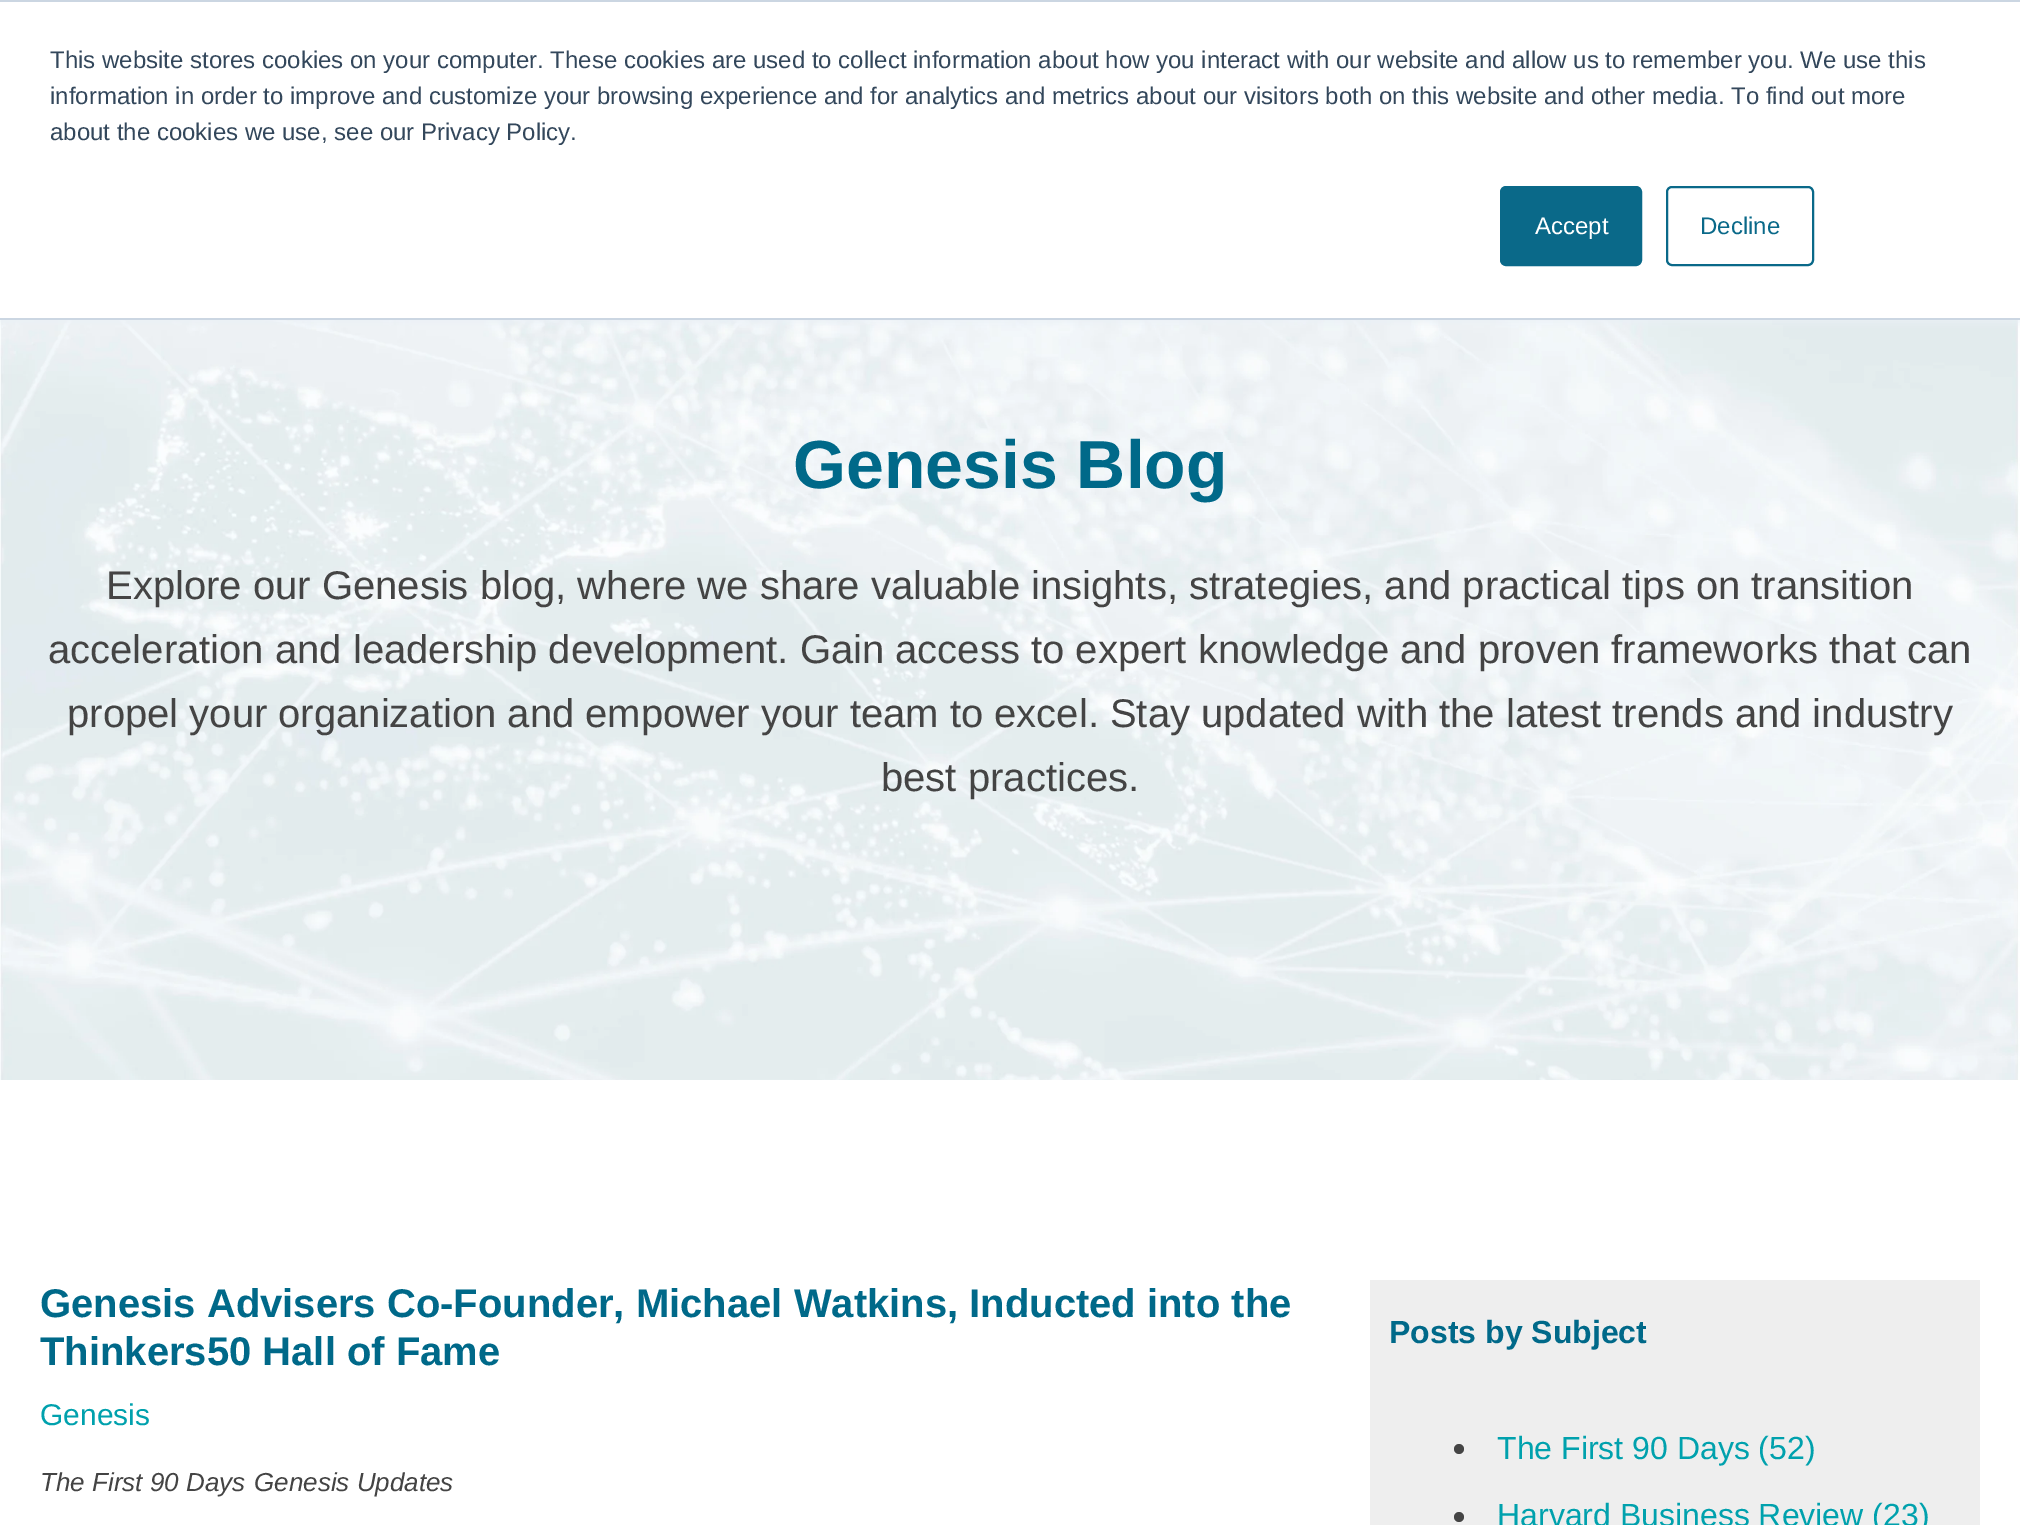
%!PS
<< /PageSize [2020 1525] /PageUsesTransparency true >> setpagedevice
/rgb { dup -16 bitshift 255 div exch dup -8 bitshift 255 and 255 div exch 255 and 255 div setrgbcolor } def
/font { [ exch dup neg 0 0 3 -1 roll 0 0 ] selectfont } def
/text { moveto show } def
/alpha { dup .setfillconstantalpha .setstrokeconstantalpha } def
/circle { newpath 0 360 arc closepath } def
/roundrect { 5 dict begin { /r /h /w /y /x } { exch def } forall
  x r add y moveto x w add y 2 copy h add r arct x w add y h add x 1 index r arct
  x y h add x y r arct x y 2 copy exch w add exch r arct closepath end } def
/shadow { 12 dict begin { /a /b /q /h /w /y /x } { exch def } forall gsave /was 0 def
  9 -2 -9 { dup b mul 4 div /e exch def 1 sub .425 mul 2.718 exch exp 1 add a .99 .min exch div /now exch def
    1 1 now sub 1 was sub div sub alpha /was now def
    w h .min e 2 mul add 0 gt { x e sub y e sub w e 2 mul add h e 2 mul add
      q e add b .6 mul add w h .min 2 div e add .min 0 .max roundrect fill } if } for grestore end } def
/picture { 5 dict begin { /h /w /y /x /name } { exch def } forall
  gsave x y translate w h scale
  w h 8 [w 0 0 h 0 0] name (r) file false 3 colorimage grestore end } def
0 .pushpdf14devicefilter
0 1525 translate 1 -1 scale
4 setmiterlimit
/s1 { /LiberationSans-Regular 24 font 16#33475B rgb } def
/s2 { /LiberationSans-Regular 24 font 16#FFFFFF rgb } def
/s3 { /LiberationSans-Regular 24 font 16#0A6989 rgb } def
/s4 { /LiberationSans-Bold 68 font 16#006989 rgb } def
/s5 { /LiberationSans-Regular 40 font 16#444444 rgb } def
/s6 { /LiberationSans-Bold 40 font 16#006989 rgb } def
/s7 { /LiberationSans-Regular 30 font 16#00A1AD rgb } def
/s8 { /LiberationSans-Italic 26 font 16#444444 rgb } def
/s9 { /LiberationSans-Bold 32 font 16#006989 rgb } def
/s10 { /LiberationSans-Regular 32 font 16#00A1AD rgb } def
16#FFFFFF rgb
0 0 2020 1525 rectfill
(pic1.raw) 0 320 2020 760 picture
16#EAF0F6 rgb
0 2 2020 320 0 5 1 shadow
16#FFFFFF rgb
0 2 2020 316 rectfill
16#CBD6E2 rgb
0 0 2020 2 rectfill
0 318 2020 2 rectfill
s1
(This website stores cookies on your computer. These cookies are used to collect information about how you interact with our website and allow us to remember you. We use this) 50 68 text
(information in order to improve and customize your browsing experience and for analytics and metrics about our visitors both on this website and other media. To find out more) 50 104 text
(about the cookies we use, see our Privacy Policy.) 50 140 text
16#0A6989 rgb
1501 187 140 78 5 roundrect gsave fill grestore
2 setlinewidth
stroke
s2
(Accept) 1535 234 text
16#0A6989 rgb
1667 187 146 78 5 roundrect stroke
(Decline) 1700 234 text
s4
(Genesis Blog) 793 488 text
s5
(Explore our Genesis blog, where we share valuable insights, strategies, and practical tips on transition) 106 599 text
(acceleration and leadership development. Gain access to expert knowledge and proven frameworks that can) 48 663 text
(propel your organization and empower your team to excel. Stay updated with the latest trends and industry) 67 727 text
(best practices.) 881 791 text
s6
(Genesis Advisers Co-Founder, Michael Watkins, Inducted into the) 40 1317 text
(Thinkers50 Hall of Fame) 40 1365 text
s7
(Genesis) 40 1425 text
s8
(The First 90 Days) 40 1491 text
(Genesis Updates) 254 1491 text
16#EEEEEE rgb
1370 1280 610 245 rectfill
s9
(Posts by Subject) 1389 1343 text
16#444444 rgb
1459 1449 5 circle fill
s10
(The First 90 Days \(52\)) 1497 1459 text
16#444444 rgb
1459 1517 5 circle fill
s10
(Harvard Business Review \(23\)) 1497 1526 text
.poppdf14devicefilter showpage
